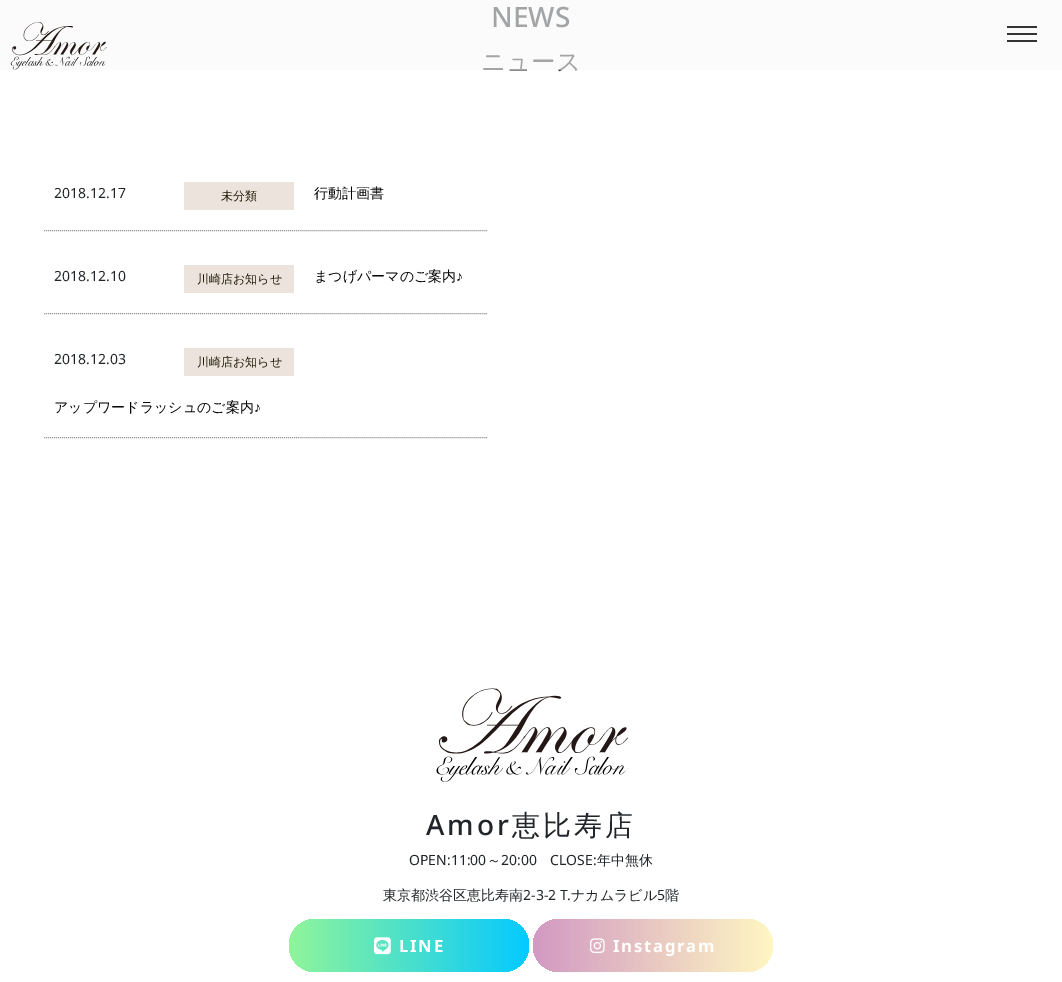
%!PS
<< /PageSize [1062 982] /PageUsesTransparency true >> setpagedevice
/rgb { dup -16 bitshift 255 div exch dup -8 bitshift 255 and 255 div exch 255 and 255 div setrgbcolor } def
/font { [ exch dup neg 0 0 3 -1 roll 0 0 ] selectfont } def
/text { moveto show } def
/alpha { dup .setfillconstantalpha .setstrokeconstantalpha } def
/roundrect { 5 dict begin { /r /h /w /y /x } { exch def } forall
  x r add y moveto x w add y 2 copy h add r arct x w add y h add x 1 index r arct
  x y h add x y r arct x y 2 copy exch w add exch r arct closepath end } def
/picture { 5 dict begin { /h /w /y /x /name } { exch def } forall
  gsave x y translate w h scale
  w h 8 [w 0 0 h 0 0] name (r) file false 3 colorimage grestore end } def
0 .pushpdf14devicefilter
0 982 translate 1 -1 scale
4 setmiterlimit
/s1 { /NotoSans-Medium 28 font 16#212529 rgb } def
/s2 { /WenQuanYiZenHei-Medium 24.5 font 16#212529 rgb } def
/s3 { /NotoSans-Regular 14 font 16#212529 rgb } def
/s4 { /WenQuanYiZenHei-Medium 12 font 16#1F1805 rgb } def
/s5 { /WenQuanYiZenHei-Medium 14 font 16#050505 rgb } def
/s6 { /LiberationSans-Regular 14 font 16#050505 rgb } def
/s7 { /WenQuanYiZenHei-Medium 14 font 16#212529 rgb } def
16#FFFFFF rgb
0 0 1062 982 rectfill
s1
(NEWS) 491 27 text
s2
(ニュース) 481 70 text
0.6 alpha
16#F8F8F8 rgb
0 0 1062 70 rectfill
1 alpha
(pic1.raw) 10 22 97 48 picture
16#333333 rgb
1007 26 30 2 rectfill
1007 33 30 2 rectfill
1007 40 30 2 rectfill
16#999999 rgb
[1 1] 0 setdash
44 230.5 moveto 487 230.5 lineto stroke
s3
(2018.12.17) 54 198 text
16#ECE4DC rgb
184 182 110 28 rectfill
s4
(未分類) 221 200 text
s5
(行動計画書) 314 198 text
16#999999 rgb
44 313.5 moveto 487 313.5 lineto stroke
s3
(2018.12.10) 54 281 text
16#ECE4DC rgb
184 265 110 28 rectfill
s4
(川崎店お知らせ) 197 283 text
s5
(まつげパーマのご案内) 314 281 text
s6
(♪) 456 281 text
16#999999 rgb
44 437.5 moveto 487 437.5 lineto stroke
s3
(2018.12.03) 54 364 text
16#ECE4DC rgb
184 348 110 28 rectfill
s4
(川崎店お知らせ) 197 366 text
s5
(アップワードラッシュのご案内) 54 412 text
s6
(♪) 254 412 text
(pic2.raw) 436 688 193 94 picture
/NotoSans-Medium 28 font
16#212529 rgb
426 835 moveto 3 0 (Amor) ashow
/WenQuanYiZenHei-Medium 28 font
512 835 moveto 3 0 (恵比寿店) ashow
s3
(OPEN:11:00) 409 865 text
s7
(～) 487 865 text
s3
(20:00) 501 865 text
(CLOSE:) 550 865 text
s7
(年中無休) 597 865 text
(東京都渋谷区恵比寿南) 383 900 text
s3
(2-3-2 T.) 523 900 text
s7
(ナカムラビル) 571 900 text
s3
(5) 657 900 text
s7
(階) 665 900 text
gsave 289 919 240 53 26.5 roundrect clip newpath
<< /ShadingType 2 /ColorSpace /DeviceRGB /Coords [289 946 529 946] /Extend [true true] /Function << /FunctionType 2 /Domain [0 1] /C0 [0.565 0.961 0.604] /C1 [0.016 0.792 1] /N 1 >> >> shfill grestore
(pic3.raw) 374 937 17 18 picture
/NotoSans-Bold 16.75 font
16#FFFFFF rgb
399 952 moveto 1.75 0 (LINE) ashow
gsave 533 919 240 53 26.5 roundrect clip newpath
<< /ShadingType 2 /ColorSpace /DeviceRGB /Coords [533 946 773 946] /Extend [true true] /Function << /FunctionType 2 /Domain [0 1] /C0 [0.824 0.6 0.761] /C1 [1 0.969 0.761] /N 1 >> >> shfill grestore
(pic4.raw) 590 938 15 16 picture
613 952 moveto 1.75 0 (Instagram) ashow
.poppdf14devicefilter showpage
